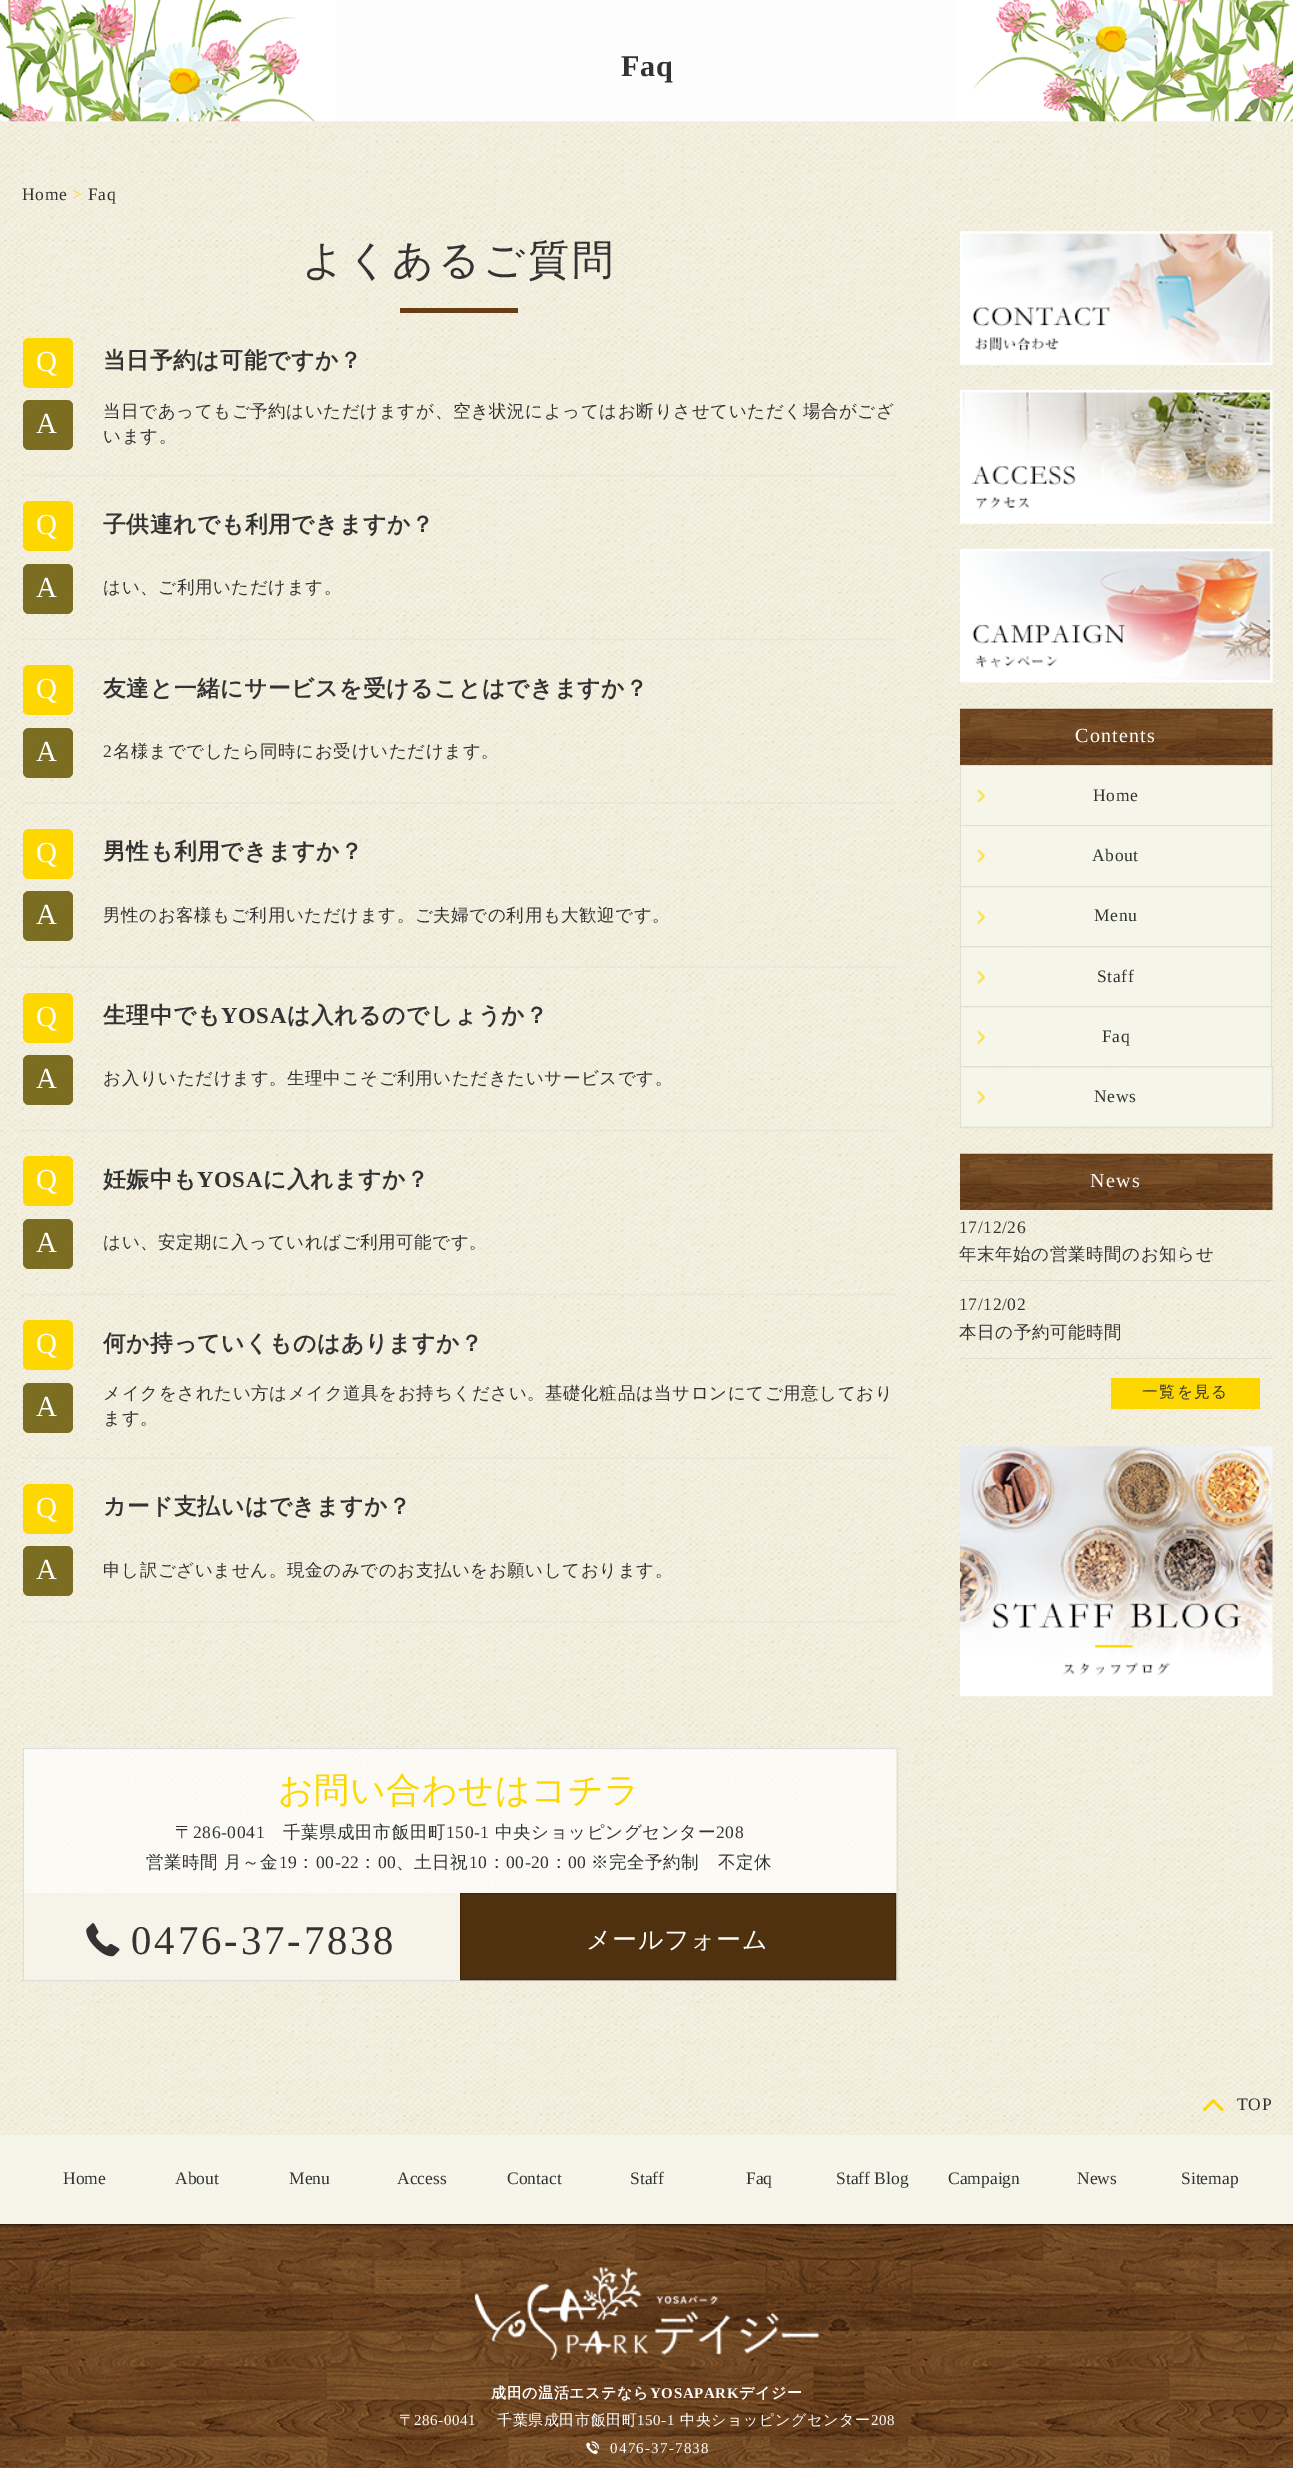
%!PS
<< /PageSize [1293 2468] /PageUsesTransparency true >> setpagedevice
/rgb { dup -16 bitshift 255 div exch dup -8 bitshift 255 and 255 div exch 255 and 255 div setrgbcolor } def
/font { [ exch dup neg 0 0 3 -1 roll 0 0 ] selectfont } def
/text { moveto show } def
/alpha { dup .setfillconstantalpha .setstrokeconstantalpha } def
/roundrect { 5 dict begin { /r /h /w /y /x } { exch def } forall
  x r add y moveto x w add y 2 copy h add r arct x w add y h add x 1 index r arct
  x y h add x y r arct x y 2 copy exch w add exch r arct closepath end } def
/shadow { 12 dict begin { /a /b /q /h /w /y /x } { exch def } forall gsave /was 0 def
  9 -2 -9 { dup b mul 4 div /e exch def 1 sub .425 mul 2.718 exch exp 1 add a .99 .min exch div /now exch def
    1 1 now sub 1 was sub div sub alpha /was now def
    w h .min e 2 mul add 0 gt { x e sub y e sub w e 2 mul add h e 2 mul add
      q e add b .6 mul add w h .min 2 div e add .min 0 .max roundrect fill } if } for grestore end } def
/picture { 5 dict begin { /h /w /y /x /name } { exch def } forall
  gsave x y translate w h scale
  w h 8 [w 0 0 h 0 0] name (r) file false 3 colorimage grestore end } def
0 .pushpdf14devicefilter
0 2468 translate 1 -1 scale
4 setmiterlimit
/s1 { /LiberationSerif-Regular 17.5 font 16#333333 rgb } def
16#FFFFFF rgb
0 0 1293 2468 rectfill
(pic1.raw) 0 121 1293 2014 picture
(pic2.raw) 0 121 1293 1 picture
(pic3.raw) 0 0 1293 122 picture
/LiberationSerif-Bold 30 font
16#333333 rgb
621 76 moveto 0.6 0 (Faq) ashow
/LiberationSerif-Regular 17.5 font
22 200 moveto 0.6 0 (Home) ashow
16#FFD700 rgb
72 200 moveto 0.6 0 (>) ashow
16#333333 rgb
88 200 moveto 0.6 0 (Faq) ashow
/WenQuanYiZenHei-Medium 41.25 font
302 274 moveto 3 0 (よくあるご質問) ashow
16#653F13 rgb
400 308 118 5 rectfill
16#DFDFD3 rgb
1.2 setlinewidth
[1.25 1.25] 0 setdash
22.5 475.5 moveto 897.5 475.5 lineto stroke
16#FFD700 rgb
23 338 50 50 6 roundrect fill
/LiberationSerif-Regular 29 font
16#FFFFFF rgb
36 371 moveto 0.6 0 (Q) ashow
/WenQuanYiZenHei-Bold 22.75 font
16#333333 rgb
103 368 moveto 0.6 0 (当日予約は可能ですか？) ashow
0.85 alpha
16#665600 rgb
23 400 50 50 6 roundrect fill
/LiberationSerif-Regular 29 font
1 alpha
16#FFFFFF rgb
36 433 moveto 0.6 0 (A) ashow
/WenQuanYiZenHei-Medium 17.5 font
16#333333 rgb
103 417 moveto 0.6 0 (当日であってもご予約はいただけますが、空き状況によってはお断りさせていただく場合がござ) ashow
103 442 moveto 0.6 0 (います。) ashow
16#DFDFD3 rgb
22.5 639.5 moveto 897.5 639.5 lineto stroke
16#FFD700 rgb
23 501 50 50 6 roundrect fill
/LiberationSerif-Regular 29 font
16#FFFFFF rgb
36 534 moveto 0.6 0 (Q) ashow
/WenQuanYiZenHei-Bold 22.75 font
16#333333 rgb
103 532 moveto 0.6 0 (子供連れでも利用できますか？) ashow
0.85 alpha
16#665600 rgb
23 564 50 50 6 roundrect fill
/LiberationSerif-Regular 29 font
1 alpha
16#FFFFFF rgb
36 597 moveto 0.6 0 (A) ashow
/WenQuanYiZenHei-Medium 17.5 font
16#333333 rgb
103 593 moveto 0.6 0 (はい、ご利用いただけます。) ashow
16#DFDFD3 rgb
22.5 803 moveto 897.5 803 lineto stroke
16#FFD700 rgb
23 665 50 50 6 roundrect fill
/LiberationSerif-Regular 29 font
16#FFFFFF rgb
36 698 moveto 0.6 0 (Q) ashow
/WenQuanYiZenHei-Bold 22.75 font
16#333333 rgb
103 696 moveto 0.6 0 (友達と一緒にサービスを受けることはできますか？) ashow
0.85 alpha
16#665600 rgb
23 728 50 50 6 roundrect fill
/LiberationSerif-Regular 29 font
1 alpha
16#FFFFFF rgb
36 761 moveto 0.6 0 (A) ashow
/LiberationSerif-Regular 17.5 font
16#333333 rgb
103 757 moveto 0.6 0 (2) ashow
/WenQuanYiZenHei-Medium 17.5 font
113 757 moveto 0.6 0 (名様まででしたら同時にお受けいただけます。) ashow
16#DFDFD3 rgb
22.5 967 moveto 897.5 967 lineto stroke
16#FFD700 rgb
23 829 50 50 6 roundrect fill
/LiberationSerif-Regular 29 font
16#FFFFFF rgb
36 862 moveto 0.6 0 (Q) ashow
/WenQuanYiZenHei-Bold 22.75 font
16#333333 rgb
103 859 moveto 0.6 0 (男性も利用できますか？) ashow
0.85 alpha
16#665600 rgb
23 891 50 50 6 roundrect fill
/LiberationSerif-Regular 29 font
1 alpha
16#FFFFFF rgb
36 924 moveto 0.6 0 (A) ashow
/WenQuanYiZenHei-Medium 17.5 font
16#333333 rgb
103 921 moveto 0.6 0 (男性のお客様もご利用いただけます。ご夫婦での利用も大歓迎です。) ashow
16#DFDFD3 rgb
22.5 1130.5 moveto 897.5 1130.5 lineto stroke
16#FFD700 rgb
23 993 50 50 6 roundrect fill
/LiberationSerif-Regular 29 font
16#FFFFFF rgb
36 1026 moveto 0.6 0 (Q) ashow
/WenQuanYiZenHei-Bold 22.75 font
16#333333 rgb
103 1023 moveto 0.6 0 (生理中でも) ashow
/LiberationSerif-Bold 22.75 font
221 1023 moveto 0.6 0 (YOSA) ashow
/WenQuanYiZenHei-Bold 22.75 font
287 1023 moveto 0.6 0 (は入れるのでしょうか？) ashow
0.85 alpha
16#665600 rgb
23 1055 50 50 6 roundrect fill
/LiberationSerif-Regular 29 font
1 alpha
16#FFFFFF rgb
36 1088 moveto 0.6 0 (A) ashow
/WenQuanYiZenHei-Medium 17.5 font
16#333333 rgb
103 1084 moveto 0.6 0 (お入りいただけます。生理中こそご利用いただきたいサービスです。) ashow
16#DFDFD3 rgb
22.5 1294.5 moveto 897.5 1294.5 lineto stroke
16#FFD700 rgb
23 1156 50 50 6 roundrect fill
/LiberationSerif-Regular 29 font
16#FFFFFF rgb
36 1189 moveto 0.6 0 (Q) ashow
/WenQuanYiZenHei-Bold 22.75 font
16#333333 rgb
103 1187 moveto 0.6 0 (妊娠中も) ashow
/LiberationSerif-Bold 22.75 font
197 1187 moveto 0.6 0 (YOSA) ashow
/WenQuanYiZenHei-Bold 22.75 font
263 1187 moveto 0.6 0 (に入れますか？) ashow
0.85 alpha
16#665600 rgb
23 1219 50 50 6 roundrect fill
/LiberationSerif-Regular 29 font
1 alpha
16#FFFFFF rgb
36 1252 moveto 0.6 0 (A) ashow
/WenQuanYiZenHei-Medium 17.5 font
16#333333 rgb
103 1248 moveto 0.6 0 (はい、安定期に入っていればご利用可能です。) ashow
16#DFDFD3 rgb
22.5 1458 moveto 897.5 1458 lineto stroke
16#FFD700 rgb
23 1320 50 50 6 roundrect fill
/LiberationSerif-Regular 29 font
16#FFFFFF rgb
36 1353 moveto 0.6 0 (Q) ashow
/WenQuanYiZenHei-Bold 22.75 font
16#333333 rgb
103 1351 moveto 0.6 0 (何か持っていくものはありますか？) ashow
0.85 alpha
16#665600 rgb
23 1383 50 50 6 roundrect fill
/LiberationSerif-Regular 29 font
1 alpha
16#FFFFFF rgb
36 1416 moveto 0.6 0 (A) ashow
/WenQuanYiZenHei-Medium 17.5 font
16#333333 rgb
103 1399 moveto 0.6 0 (メイクをされたい方はメイク道具をお持ちください。基礎化粧品は当サロンにてご用意しており) ashow
103 1424 moveto 0.6 0 (ます。) ashow
16#DFDFD3 rgb
22.5 1622 moveto 897.5 1622 lineto stroke
16#FFD700 rgb
23 1484 50 50 6 roundrect fill
/LiberationSerif-Regular 29 font
16#FFFFFF rgb
36 1517 moveto 0.6 0 (Q) ashow
/WenQuanYiZenHei-Bold 22.75 font
16#333333 rgb
103 1514 moveto 0.6 0 (カード支払いはできますか？) ashow
0.85 alpha
16#665600 rgb
23 1546 50 50 6 roundrect fill
/LiberationSerif-Regular 29 font
1 alpha
16#FFFFFF rgb
36 1579 moveto 0.6 0 (A) ashow
/WenQuanYiZenHei-Medium 17.5 font
16#333333 rgb
103 1576 moveto 0.6 0 (申し訳ございません。現金のみでのお支払いをお願いしております。) ashow
16#DEDEDE rgb
1 setlinewidth
[] 0 setdash
23.5 1748.5 874 232 rectstroke
0.71 alpha
16#FFFFFF rgb
24 1749 872 144 rectfill
/WenQuanYiZenHei-Medium 35 font
1 alpha
16#FFD700 rgb
278 1802 moveto 0.6 0 (お問い合わせはコチラ) ashow
/WenQuanYiZenHei-Medium 17.5 font
16#333333 rgb
175 1838 moveto 0.6 0 (〒) ashow
/LiberationSerif-Regular 17.5 font
193 1838 moveto 0.6 0 (286-0041) ashow
/WenQuanYiZenHei-Medium 17.5 font
283 1838 moveto 0.6 0 (千葉県成田市飯田町) ashow
/LiberationSerif-Regular 17.5 font
446 1838 moveto 0.6 0 (150-1) ashow
/WenQuanYiZenHei-Medium 17.5 font
495 1838 moveto 0.6 0 (中央ショッピングセンター) ashow
/LiberationSerif-Regular 17.5 font
716 1838 moveto 0.6 0 (208) ashow
/WenQuanYiZenHei-Medium 17.5 font
146 1868 moveto 0.6 0 (営業時間 月～金) ashow
/LiberationSerif-Regular 17.5 font
279 1868 moveto 0.6 0 (19) ashow
/WenQuanYiZenHei-Medium 17.5 font
297 1868 moveto 0.6 0 (：) ashow
/LiberationSerif-Regular 17.5 font
316 1868 moveto 0.6 0 (00-22) ashow
/WenQuanYiZenHei-Medium 17.5 font
359 1868 moveto 0.6 0 (：) ashow
/LiberationSerif-Regular 17.5 font
378 1868 moveto 0.6 0 (00) ashow
/WenQuanYiZenHei-Medium 17.5 font
396 1868 moveto 0.6 0 (、土日祝) ashow
/LiberationSerif-Regular 17.5 font
469 1868 moveto 0.6 0 (10) ashow
/WenQuanYiZenHei-Medium 17.5 font
488 1868 moveto 0.6 0 (：) ashow
/LiberationSerif-Regular 17.5 font
506 1868 moveto 0.6 0 (00-20) ashow
/WenQuanYiZenHei-Medium 17.5 font
550 1868 moveto 0.6 0 (：) ashow
/LiberationSerif-Regular 17.5 font
568 1868 moveto 0.6 0 (00) ashow
/WenQuanYiZenHei-Medium 17.5 font
591 1868 moveto 0.6 0 (※完全予約制　不定休) ashow
16#F6F3E9 rgb
24 1893 436 87 rectfill
(pic4.raw) 86 1923 34 34 picture
/LiberationSerif-Regular 40.75 font
16#333333 rgb
131 1954 moveto 2.9 0 (0476-37-7838) ashow
16#4F310F rgb
460.5 1893.5 moveto 895.5 1893.5 lineto 895.5 1979.5 lineto 460.5 1979.5 lineto closepath gsave fill grestore
16#432503 rgb
stroke
/WenQuanYiZenHei-Medium 25 font
16#FFFFFF rgb
586 1948 moveto 0.6 0 (メールフォーム) ashow
(pic5.raw) 960 231 313 134 picture
(pic6.raw) 960 390 313 134 picture
(pic7.raw) 960 548 313 135 picture
(pic8.raw) 960 708 313 57 picture
16#653F13 rgb
960 709 313 1 rectfill
/LiberationSerif-Regular 20 font
16#FFFFFF rgb
1075 742 moveto 1.25 0 (Contents) ashow
16#DFDFD3 rgb
960 765 313 1 rectfill
1271 765 1 60 rectfill
960 765 1 60 rectfill
16#F5F5E9 rgb
961 766 310 59 rectfill
(pic9.raw) 977 789 8 14 picture
/LiberationSerif-Regular 17.5 font
16#333333 rgb
1093 801 moveto 0.6 0 (Home) ashow
16#DFDFD3 rgb
960 825 313 1 rectfill
1271 825 1 61 rectfill
960 825 1 61 rectfill
16#F5F5E9 rgb
961 826 310 60 rectfill
(pic9.raw) 977 849 8 14 picture
16#333333 rgb
1092 861 moveto 0.6 0 (About) ashow
16#DFDFD3 rgb
960 886 313 1 rectfill
1271 886 1 60 rectfill
960 886 1 60 rectfill
16#F5F5E9 rgb
961 888 310 58 rectfill
(pic10.raw) 977 910 8 14 picture
16#333333 rgb
1094 921 moveto 0.6 0 (Menu) ashow
16#DFDFD3 rgb
960 946 313 1 rectfill
1271 946 1 60 rectfill
960 946 1 60 rectfill
16#F5F5E9 rgb
961 948 310 58 rectfill
(pic10.raw) 977 970 8 14 picture
16#333333 rgb
1097 982 moveto 0.6 0 (Staff) ashow
16#DFDFD3 rgb
960 1006 313 1 rectfill
1271 1006 1 60 rectfill
960 1006 1 60 rectfill
16#F5F5E9 rgb
961 1008 310 58 rectfill
(pic10.raw) 977 1030 8 14 picture
16#333333 rgb
1102 1042 moveto 0.6 0 (Faq) ashow
16#DFDFD3 rgb
960.5 1066.5 312 61 rectstroke
16#F5F5E9 rgb
961 1068 310 58 rectfill
(pic10.raw) 977 1090 8 14 picture
16#333333 rgb
1094 1102 moveto 0.6 0 (News) ashow
(pic11.raw) 960 1153 313 57 picture
16#653F13 rgb
960 1154 313 1 rectfill
/LiberationSerif-Regular 20 font
16#FFFFFF rgb
1090 1187 moveto 1.25 0 (News) ashow
16#DFDFD3 rgb
960 1280 313 1 rectfill
/LiberationSerif-Regular 17.5 font
16#333333 rgb
959 1233 moveto 0.6 0 (17/12/26) ashow
/WenQuanYiZenHei-Medium 17.5 font
959 1260 moveto 0.6 0 (年末年始の営業時間のお知らせ) ashow
16#DFDFD3 rgb
960 1358 313 1 rectfill
/LiberationSerif-Regular 17.5 font
16#333333 rgb
959 1310 moveto 0.6 0 (17/12/02) ashow
/WenQuanYiZenHei-Medium 17.5 font
959 1338 moveto 0.6 0 (本日の予約可能時間) ashow
16#FFD700 rgb
1111 1378 149 31 rectfill
/WenQuanYiZenHei-Medium 15.75 font
16#333333 rgb
1142 1397 moveto 1.5 0 (一覧を見る) ashow
(pic12.raw) 960 1446 313 251 picture
16#FFD700 rgb
1202.5 2109.5 moveto 1213 2099 lineto 1215 2101 lineto 1204.5 2111.5 lineto closepath fill
1211.5 2101 moveto 1213 2099 lineto 1224 2109.5 lineto 1222 2111.5 lineto closepath fill
/LiberationSerif-Regular 17.5 font
16#333333 rgb
1237 2110 moveto 0.6 0 (TOP) ashow
(pic13.raw) 0 2224 1293 244 picture
16#000000 rgb
0 2136 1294 89 0 0.5 0.33 shadow
16#F5F5E9 rgb
0 2135 1293 89 rectfill
s1
(Home) 63 2184 text
(About) 175 2184 text
(Menu) 289 2184 text
(Access) 397 2184 text
(Contact) 507 2184 text
(Staff) 630 2184 text
(Faq) 746 2184 text
(Staff Blog) 836 2184 text
(Campaign) 948 2184 text
(News) 1077 2184 text
(Sitemap) 1181 2184 text
(pic14.raw) 475 2267 344 93 picture
/WenQuanYiZenHei-Bold 15 font
16#FFFFFF rgb
491 2398 moveto 0.6 0 (成田の温活エステなら) ashow
/LiberationSerif-Bold 15 font
650 2398 moveto 0.6 0 (YOSAPARK) ashow
/WenQuanYiZenHei-Bold 15 font
739 2398 moveto 0.6 0 (デイジー) ashow
/WenQuanYiZenHei-Medium 15 font
399 2425 moveto 0.6 0 (〒) ashow
/LiberationSerif-Regular 15 font
414 2425 moveto 0.6 0 (286-0041) ashow
/WenQuanYiZenHei-Medium 15 font
497 2425 moveto 0.6 0 (千葉県成田市飯田町) ashow
/LiberationSerif-Regular 15 font
637 2425 moveto 0.6 0 (150-1) ashow
/WenQuanYiZenHei-Medium 15 font
680 2425 moveto 0.6 0 (中央ショッピングセンター) ashow
/LiberationSerif-Regular 15 font
871 2425 moveto 0.6 0 (208) ashow
(pic15.raw) 586 2441 13 14 picture
610 2453 moveto 1.25 0 (0476-37-7838) ashow
.poppdf14devicefilter showpage
